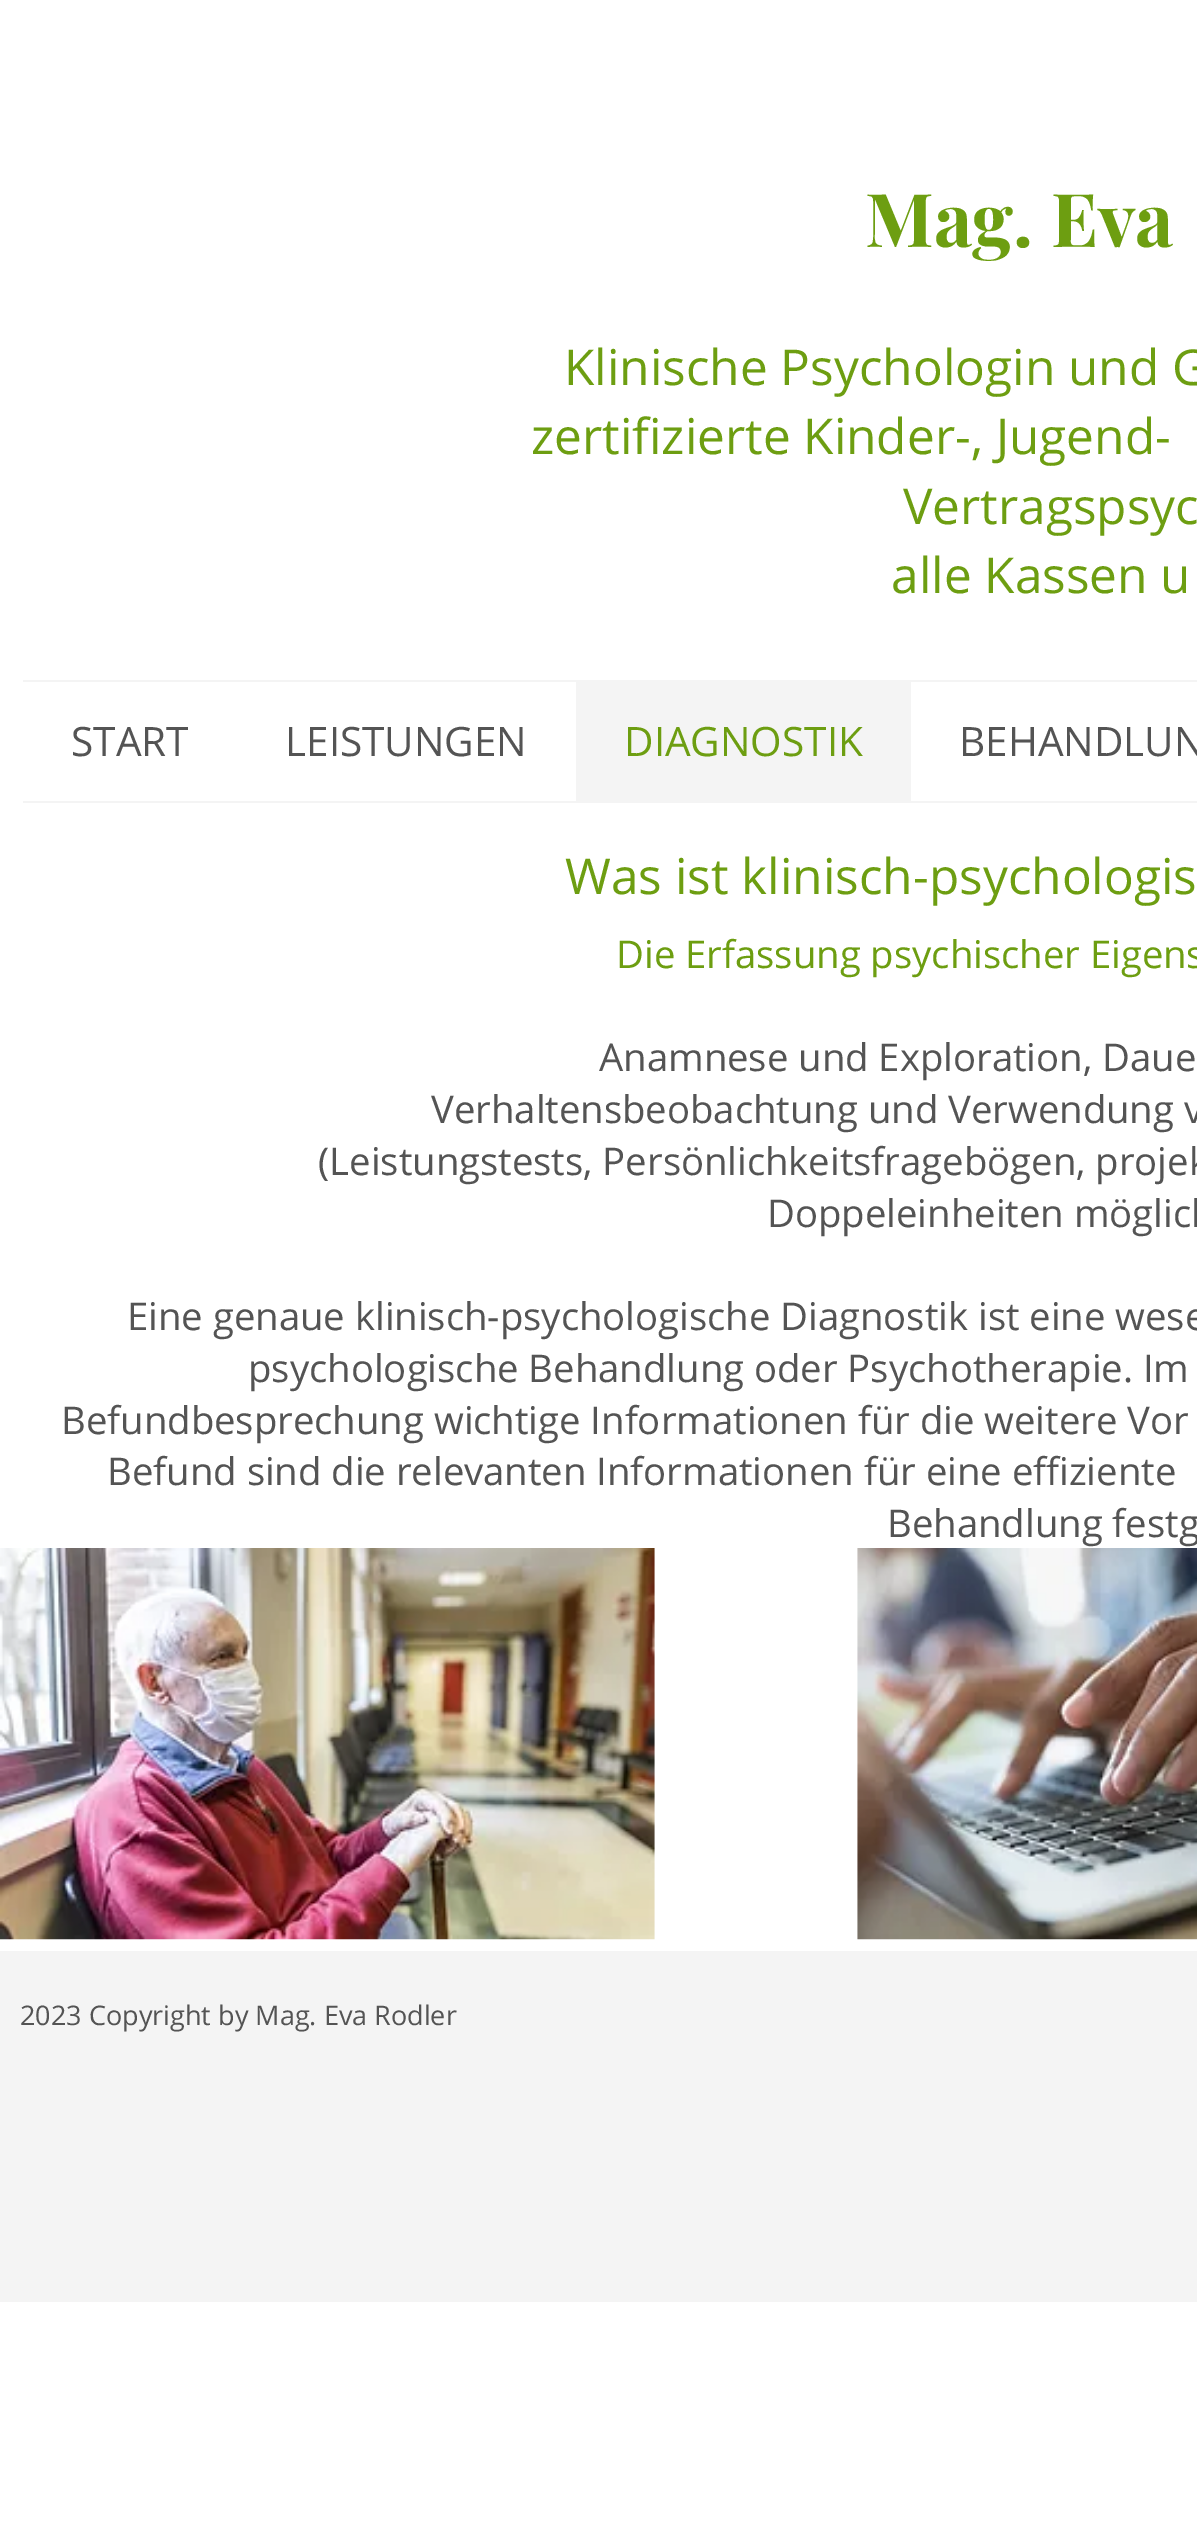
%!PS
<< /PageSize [1197 2547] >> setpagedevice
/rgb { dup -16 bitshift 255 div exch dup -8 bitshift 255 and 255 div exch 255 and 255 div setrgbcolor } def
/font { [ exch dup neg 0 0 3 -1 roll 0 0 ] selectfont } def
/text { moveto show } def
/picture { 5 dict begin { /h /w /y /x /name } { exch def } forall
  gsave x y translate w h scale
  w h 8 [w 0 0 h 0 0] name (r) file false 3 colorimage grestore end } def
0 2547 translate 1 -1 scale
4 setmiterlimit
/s1 { /PlayfairDisplay-Bold 74.25 font 16#6D9E11 rgb } def
/s2 { /OpenSans-Regular 49.5 font 16#6D9E11 rgb } def
/s3 { /OpenSans-Regular 40.5 font 16#545454 rgb } def
/s4 { /OpenSans-Regular 40.5 font 16#6D9E11 rgb } def
/s5 { /OpenSans-Regular 38.25 font 16#6D9E11 rgb } def
/s6 { /OpenSans-Regular 38.25 font 16#545454 rgb } def
/s7 { /OpenSans-Regular 27 font 16#545454 rgb } def
16#FFFFFF rgb
0 0 1197 2547 rectfill
s1
(Mag. Eva) 865 247 text
s2
(Klinische Psychologin und G) 564 385 text
(zertifizierte Kinder-, Jugend-) 531 454 text
(Vertragspsyc) 903 524 text
(alle Kassen u) 891 593 text
16#F4F4F4 rgb
23 680 1174 2 rectfill
23 801 1174 2 rectfill
s3
(START) 71 756 text
(LEISTUNGEN) 285 756 text
16#F4F4F4 rgb
576 682 335 119 rectfill
s4
(DIAGNOSTIK) 624 756 text
s3
(BEHANDLUN) 959 756 text
s2
(Was ist klinisch-psychologis) 565 894 text
s5
(Die Erfassung psychischer Eigens) 616 968 text
s6
(Anamnese und Exploration, Daue) 599 1071 text
(Verhaltensbeobachtung und Verwendung v) 431 1123 text
(\(Leistungstests, Persönlichkeitsfragebögen, projek) 318 1175 text
(Doppeleinheiten möglich) 767 1227 text
(Eine genaue klinisch-psychologische Diagnostik ist eine wese) 127 1330 text
(psychologische Behandlung oder Psychotherapie. Im) 248 1382 text
(Befundbesprechung wichtige Informationen für die weitere Vor) 61 1434 text
(Befund sind die relevanten Informationen für eine effiziente) 107 1485 text
(Behandlung festg) 887 1537 text
(pic1.raw) 0 1548 655 392 picture
(pic2.raw) 857 1548 340 392 picture
16#F4F4F4 rgb
0 1951 1197 351 rectfill
s7
(2023 Copyright by Mag. Eva Rodler) 20 2025 text
showpage
